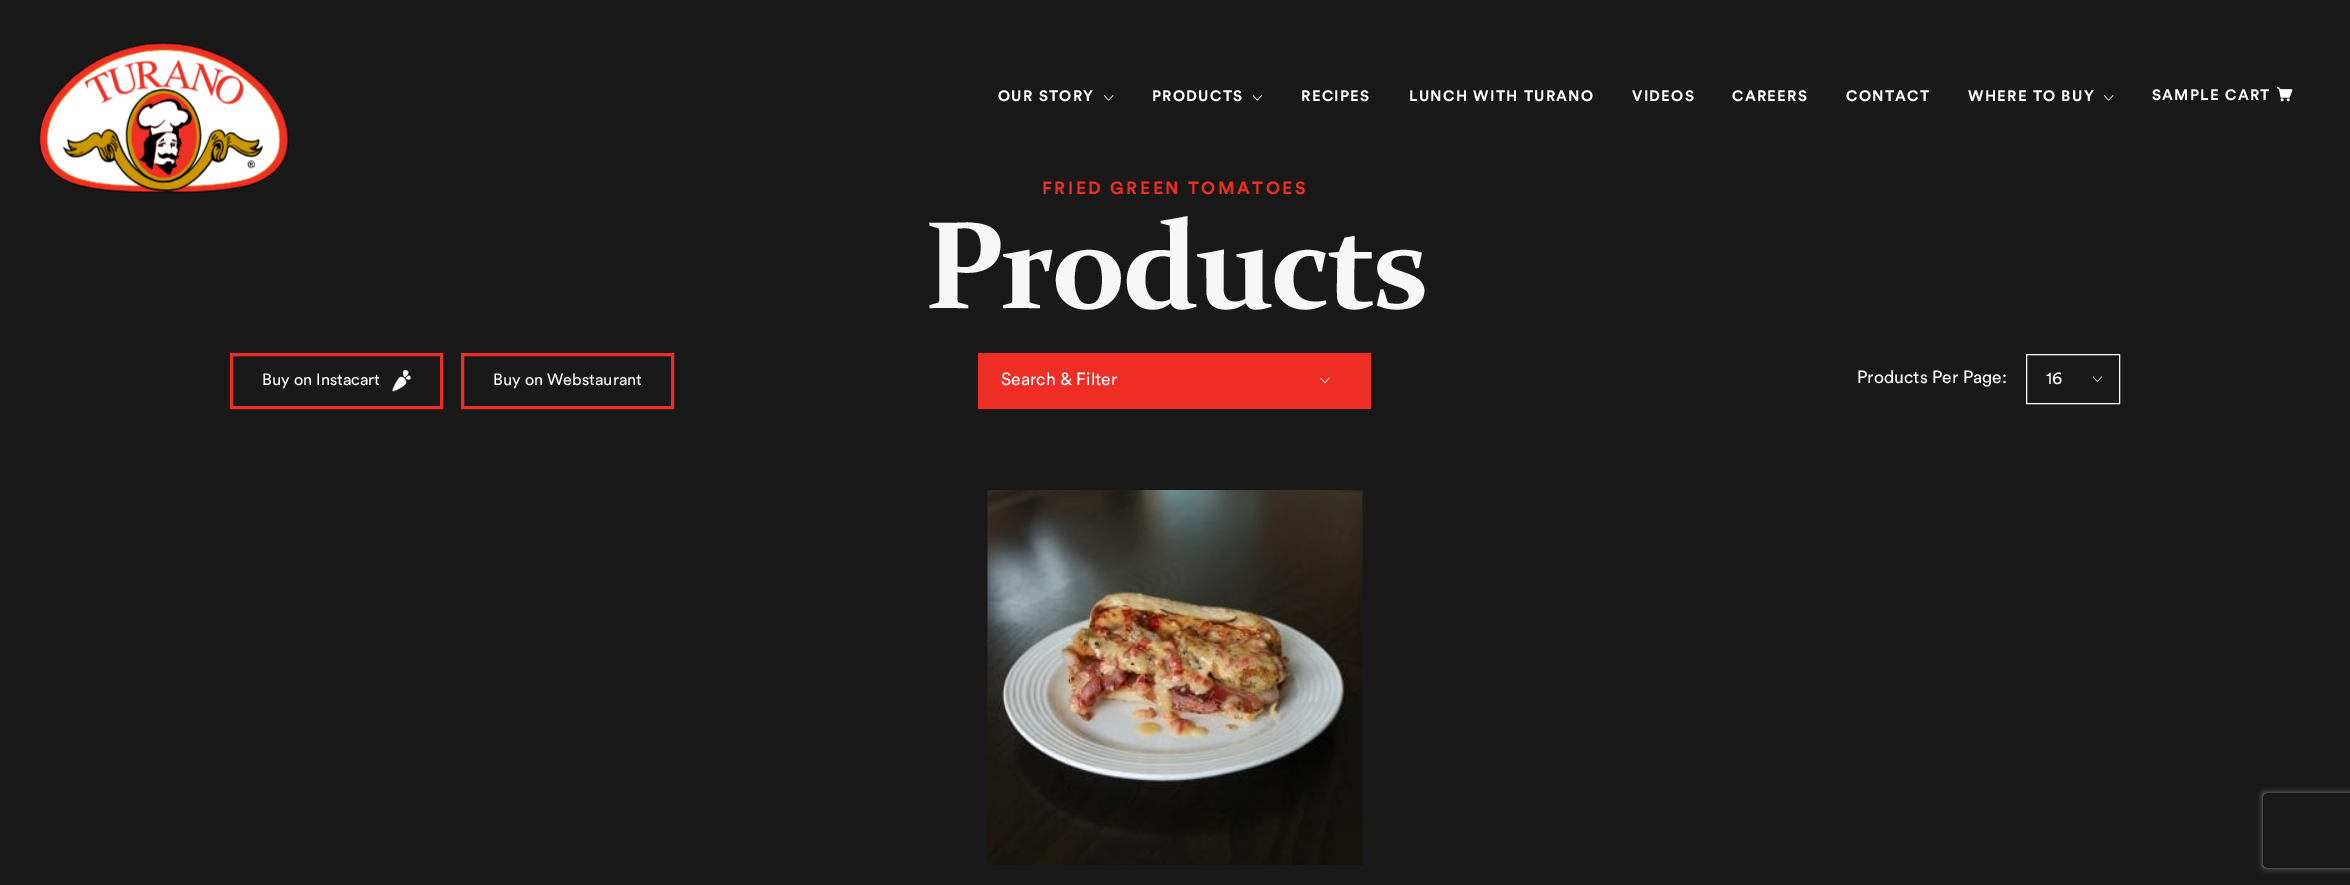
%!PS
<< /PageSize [2350 885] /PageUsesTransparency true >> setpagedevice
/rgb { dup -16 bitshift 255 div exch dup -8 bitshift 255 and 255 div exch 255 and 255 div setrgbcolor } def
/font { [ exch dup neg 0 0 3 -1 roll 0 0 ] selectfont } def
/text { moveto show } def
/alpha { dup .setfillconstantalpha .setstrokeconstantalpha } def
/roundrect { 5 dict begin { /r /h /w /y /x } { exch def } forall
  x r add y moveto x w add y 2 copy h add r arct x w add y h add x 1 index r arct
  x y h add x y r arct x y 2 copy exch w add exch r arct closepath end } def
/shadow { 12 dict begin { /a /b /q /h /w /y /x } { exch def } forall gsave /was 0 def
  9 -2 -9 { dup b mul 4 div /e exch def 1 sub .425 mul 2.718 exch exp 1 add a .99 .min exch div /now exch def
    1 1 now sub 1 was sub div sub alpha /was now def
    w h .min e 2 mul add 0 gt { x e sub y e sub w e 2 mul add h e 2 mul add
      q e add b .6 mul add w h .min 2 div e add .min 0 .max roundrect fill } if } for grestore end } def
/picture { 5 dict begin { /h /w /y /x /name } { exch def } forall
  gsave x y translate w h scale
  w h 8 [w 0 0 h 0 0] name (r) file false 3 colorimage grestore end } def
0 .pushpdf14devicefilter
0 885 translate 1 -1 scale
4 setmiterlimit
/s1 { /Circular-Regular 16.25 font 16#FFFFFF rgb } def
/s2 { /Circular-Regular 17.5 font 16#FFFFFF rgb } def
16#191919 rgb
0 0 2350 885 rectfill
(pic1.raw) 38 42 251 152 picture
/Circular-Bold 15 font
16#FFFFFF rgb
998 101 moveto 1.25 0 (OUR STORY) ashow
(pic2.raw) 1104 95 10 6 picture
1152 101 moveto 1.25 0 (PRODUCTS) ashow
(pic3.raw) 1253 95 10 6 picture
1301 101 moveto 1.25 0 (RECIPES) ashow
1409 101 moveto 1.25 0 (LUNCH WITH TURANO) ashow
1632 101 moveto 1.25 0 (VIDEOS) ashow
1732 101 moveto 1.25 0 (CAREERS) ashow
1846 101 moveto 1.25 0 (CONTACT) ashow
1968 101 moveto 1.25 0 (WHERE TO BUY) ashow
(pic2.raw) 2104 95 10 6 picture
2152 100 moveto 1.25 0 (SAMPLE CART) ashow
(pic4.raw) 2276 86 17 16 picture
/Circular-Bold 17.5 font
16#EE2E24 rgb
1042 194 moveto 2.5 0 (FRIED GREEN TOMATOES) ashow
/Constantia-Bold 125 font
16#F7F7F7 rgb
924 308 moveto -3.75 0 (Products) ashow
16#EE2E24 rgb
3 setlinewidth
231.5 354.5 210 53 rectstroke
s1
(Buy on Instacart) 262 385 text
(pic5.raw) 392 370 19 22 picture
16#EE2E24 rgb
462.5 354.5 210 53 rectstroke
s1
(Buy on Webstaurant) 493 385 text
16#EE2E24 rgb
978 353 393 56 rectfill
s2
(Search & Filter) 1001 385 text
(pic6.raw) 1320 378 10 6 picture
(Products Per Page:) 1857 383 text
(pic7.raw) 2093 376 10 6 picture
1 setlinewidth
2026.5 354.5 93 49 rectstroke
(16) 2046 384 text
(pic8.raw) 987 490 376 375 picture
gsave
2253 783 moveto 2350 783 lineto 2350 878 lineto 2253 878 lineto closepath 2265.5 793 moveto 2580.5 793 lineto 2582 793 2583 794 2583 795.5 curveto 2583 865.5 lineto 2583 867 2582 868 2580.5 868 curveto 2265.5 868 lineto 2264 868 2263 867 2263 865.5 curveto 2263 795.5 lineto 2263 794 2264 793 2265.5 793 curveto closepath eoclip newpath
16#808080 rgb
2263 793 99 75 2.5 3 1 shadow
grestore
.poppdf14devicefilter showpage
